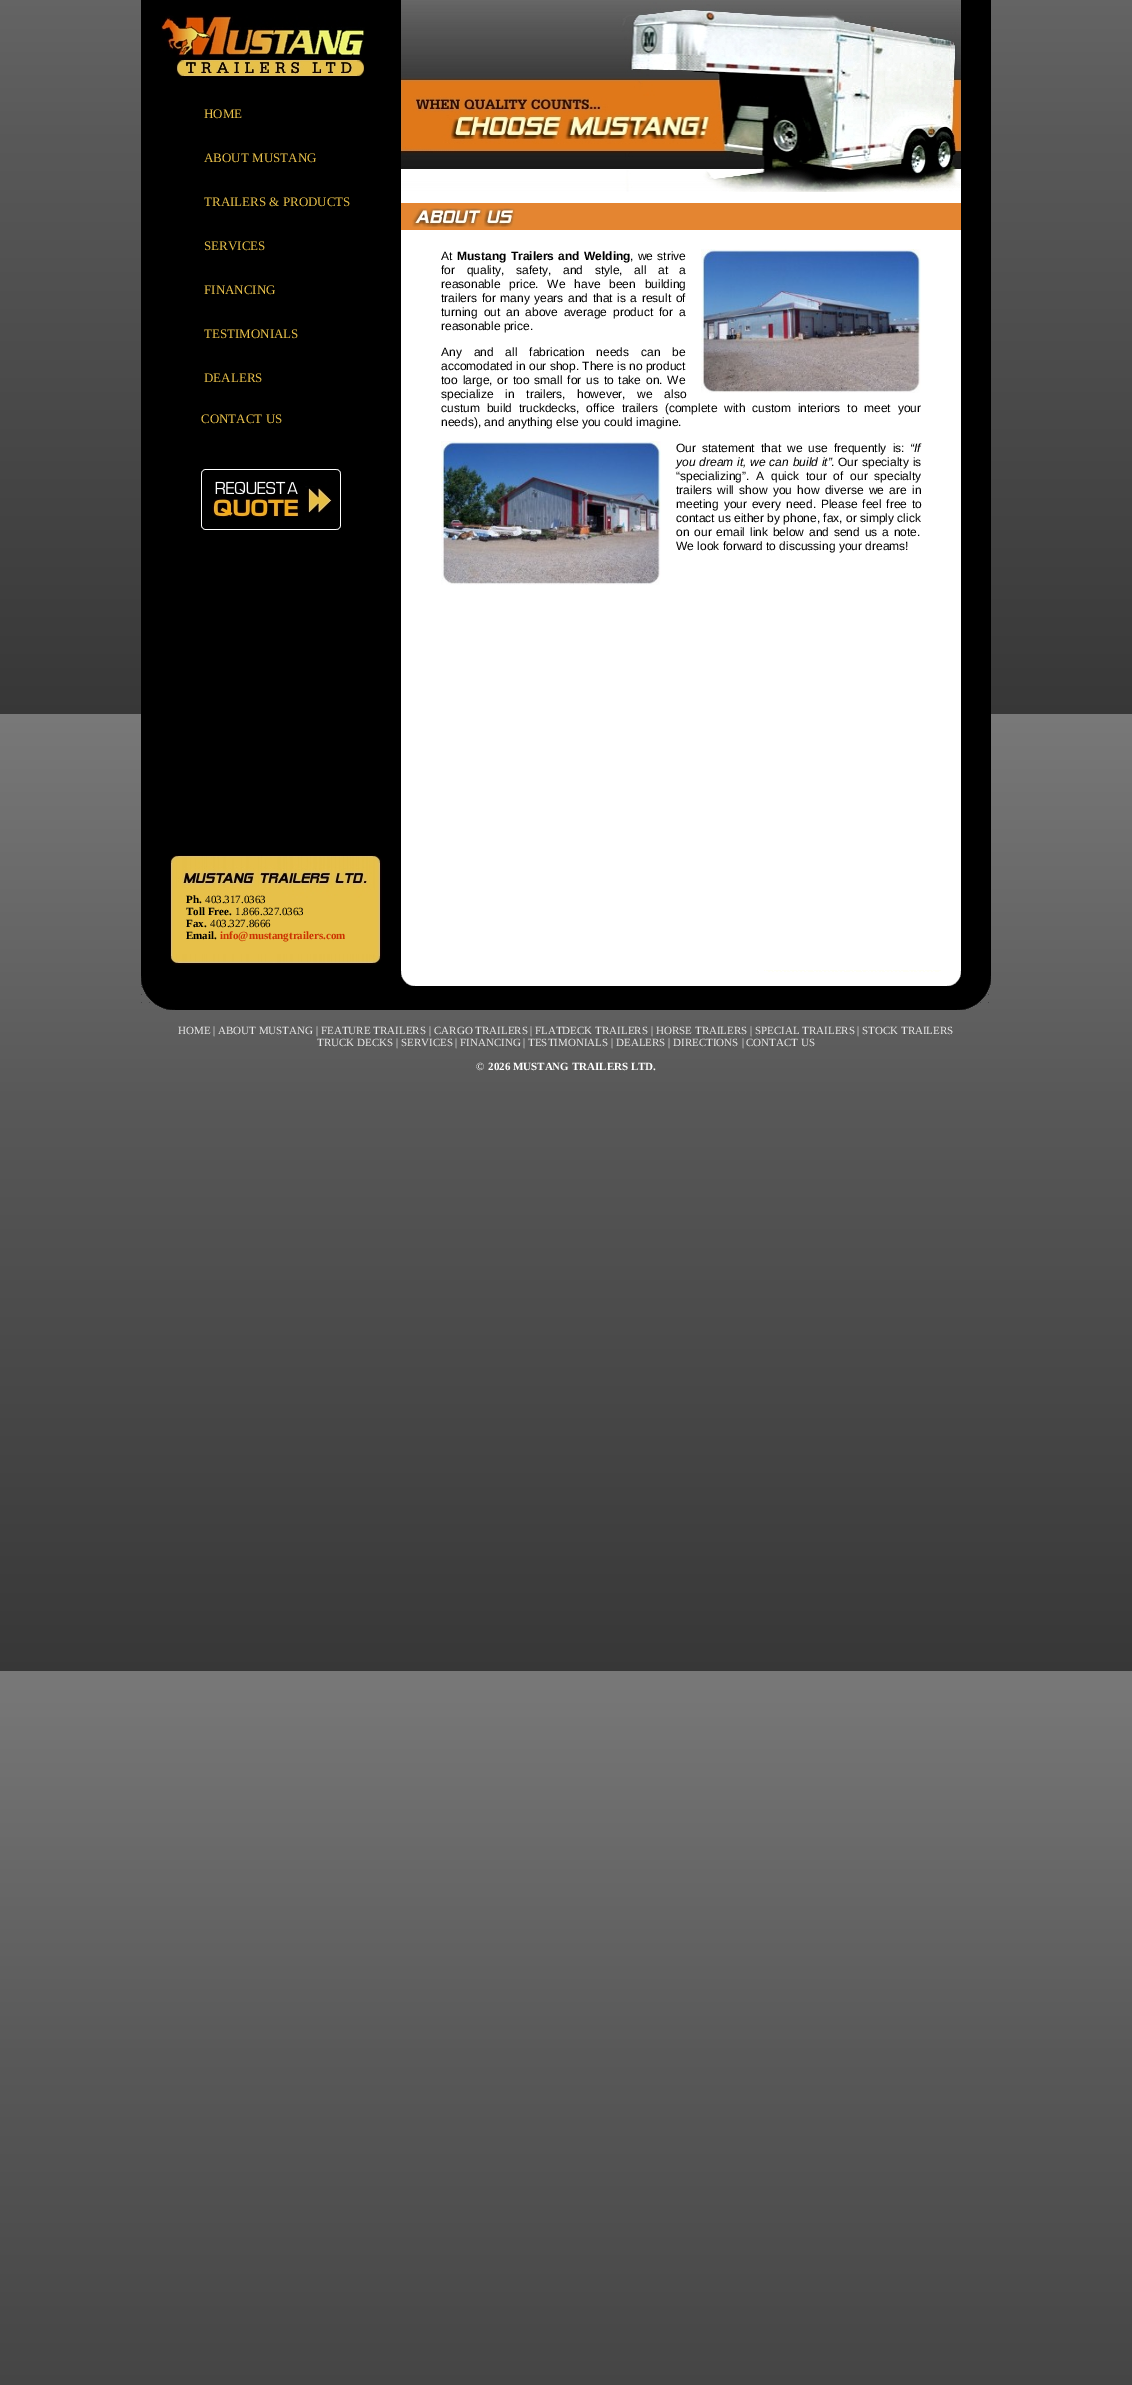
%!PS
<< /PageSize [1132 2385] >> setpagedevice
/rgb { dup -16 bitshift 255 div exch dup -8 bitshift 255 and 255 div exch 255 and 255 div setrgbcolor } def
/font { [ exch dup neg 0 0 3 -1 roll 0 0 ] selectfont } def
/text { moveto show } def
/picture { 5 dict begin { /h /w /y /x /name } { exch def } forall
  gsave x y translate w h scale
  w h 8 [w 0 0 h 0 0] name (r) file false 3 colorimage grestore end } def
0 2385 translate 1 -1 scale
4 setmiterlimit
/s1 { /LiberationSerif-Regular 13 font 16#E8C04A rgb } def
/s2 { /LiberationSans-Regular 12 font 16#000000 rgb } def
/s3 { /LiberationSans-Italic 12 font 16#000000 rgb } def
/s4 { /LiberationSerif-Bold 11 font 16#000000 rgb } def
/s5 { /LiberationSerif-Regular 11 font 16#000000 rgb } def
/s6 { /LiberationSerif-Bold 11 font 16#CC3300 rgb } def
/s7 { /LiberationSerif-Regular 11 font 16#EAEAEA rgb } def
/s8 { /LiberationSerif-Regular 11 font 16#FFFFFF rgb } def
/s9 { /LiberationSerif-Bold 11 font 16#FFFFFF rgb } def
16#FFFFFF rgb
0 0 1132 2385 rectfill
(pic1.raw) 0 0 1132 2385 picture
16#000000 rgb
141 0 850 970 rectfill
16#FFFFFF rgb
401 192 560 778 rectfill
(pic2.raw) 161 15 204 62 picture
s1
(HOME) 204 118 text
(ABOUT MUSTANG) 204 162 text
(TRAILERS & PRODUCTS) 204 206 text
(SERVICES) 204 250 text
(FINANCING) 204 294 text
(TESTIMONIALS) 204 338 text
(DEALERS) 204 382 text
(CONTACT US) 201 423 text
(pic3.raw) 201 469 140 61 picture
(pic4.raw) 401 0 560 192 picture
16#E48531 rgb
401 203 560 27 rectfill
(pic5.raw) 412 208 103 20 picture
s2
(At) 441 260 text
/LiberationSans-Bold 12 font
457 260 moveto 1 0 32 (Mustang Trailers and Welding) widthshow
/LiberationSans-Regular 12 font
630 260 moveto 1 0 32 (, we strive) widthshow
(pic6.raw) 701 249 220 144 picture
441 274 moveto 8.25 0 32 (for quality, safety, and style, all at a) widthshow
441 288 moveto 5.5 0 32 (reasonable price. We have been building) widthshow
441 302 moveto 1.25 0 32 (trailers for many years and that is a result of) widthshow
441 316 moveto 2.5 0 32 (turning out an above average product for a) widthshow
(reasonable price.) 441 330 text
441 356 moveto 8.5 0 32 (Any and all fabrication needs can be) widthshow
(accomodated in our shop. There is no product) 441 370 text
441 384 moveto 1.5 0 32 (too large, or too small for us to take on. We) widthshow
441 398 moveto 8.25 0 32 (specialize in trailers, however, we also) widthshow
441 412 moveto 3.5 0 32 (custum build truckdecks, office trailers \(complete with custom interiors to meet your) widthshow
(needs\), and anything else you could imagine.) 441 426 text
(pic7.raw) 441 441 220 144 picture
676 452 moveto 2.75 0 32 (Our statement that we use frequently is:) widthshow
s3
(“If) 910 452 text
676 466 moveto 0.5 0 32 (you dream it, we can build it”) widthshow
/LiberationSans-Regular 12 font
831 466 moveto 0.5 0 32 (. Our specialty is) widthshow
676 480 moveto 3.5 0 32 (“specializing”. A quick tour of our specialty) widthshow
676 494 moveto 2 0 32 (trailers will show you how diverse we are in) widthshow
676 508 moveto 1.5 0 32 (meeting your every need. Please feel free to) widthshow
(contact us either by phone, fax, or simply click) 676 522 text
676 536 moveto 1.5 0 32 (on our email link below and send us a note.) widthshow
(We look forward to discussing your dreams!) 676 550 text
(pic8.raw) 170 855 212 110 picture
s4
(Ph.) 186 903 text
s5
(403.317.0363) 205 903 text
s4
(Toll Free.) 186 915 text
s5
(1.866.327.0363) 235 915 text
s4
(Fax.) 186 927 text
s5
(403.327.8666) 210 927 text
s4
(Email.) 186 939 text
s6
(info@mustangtrailers.com) 220 939 text
(pic9.raw) 141 970 850 40 picture
s7
(HOME) 178 1034 text
s8
(|) 213 1034 text
s7
(ABOUT MUSTANG) 218 1034 text
s8
(|) 316 1034 text
s7
(FEATURE TRAILERS) 321 1034 text
s8
(|) 429 1034 text
s7
(CARGO TRAILERS) 434 1034 text
s8
(|) 530 1034 text
s7
(FLATDECK TRAILERS) 535 1034 text
s8
(|) 651 1034 text
s7
(HORSE TRAILERS) 656 1034 text
s8
(|) 750 1034 text
s7
(SPECIAL TRAILERS) 755 1034 text
s8
(|) 857 1034 text
s7
(STOCK TRAILERS) 862 1034 text
(TRUCK DECKS) 317 1046 text
s8
(|) 396 1046 text
s7
(SERVICES) 401 1046 text
s8
(|) 455 1046 text
s7
(FINANCING) 460 1046 text
s8
(|) 523 1046 text
s7
(TESTIMONIALS) 528 1046 text
s8
(|) 611 1046 text
s7
(DEALERS) 616 1046 text
s8
(|) 668 1046 text
s7
(DIRECTIONS) 673 1046 text
s8
(|) 742 1046 text
s7
(CONTACT US) 746 1046 text
s8
(©) 476 1070 text
s9
(2026 MUSTANG TRAILERS LTD.) 488 1070 text
showpage
